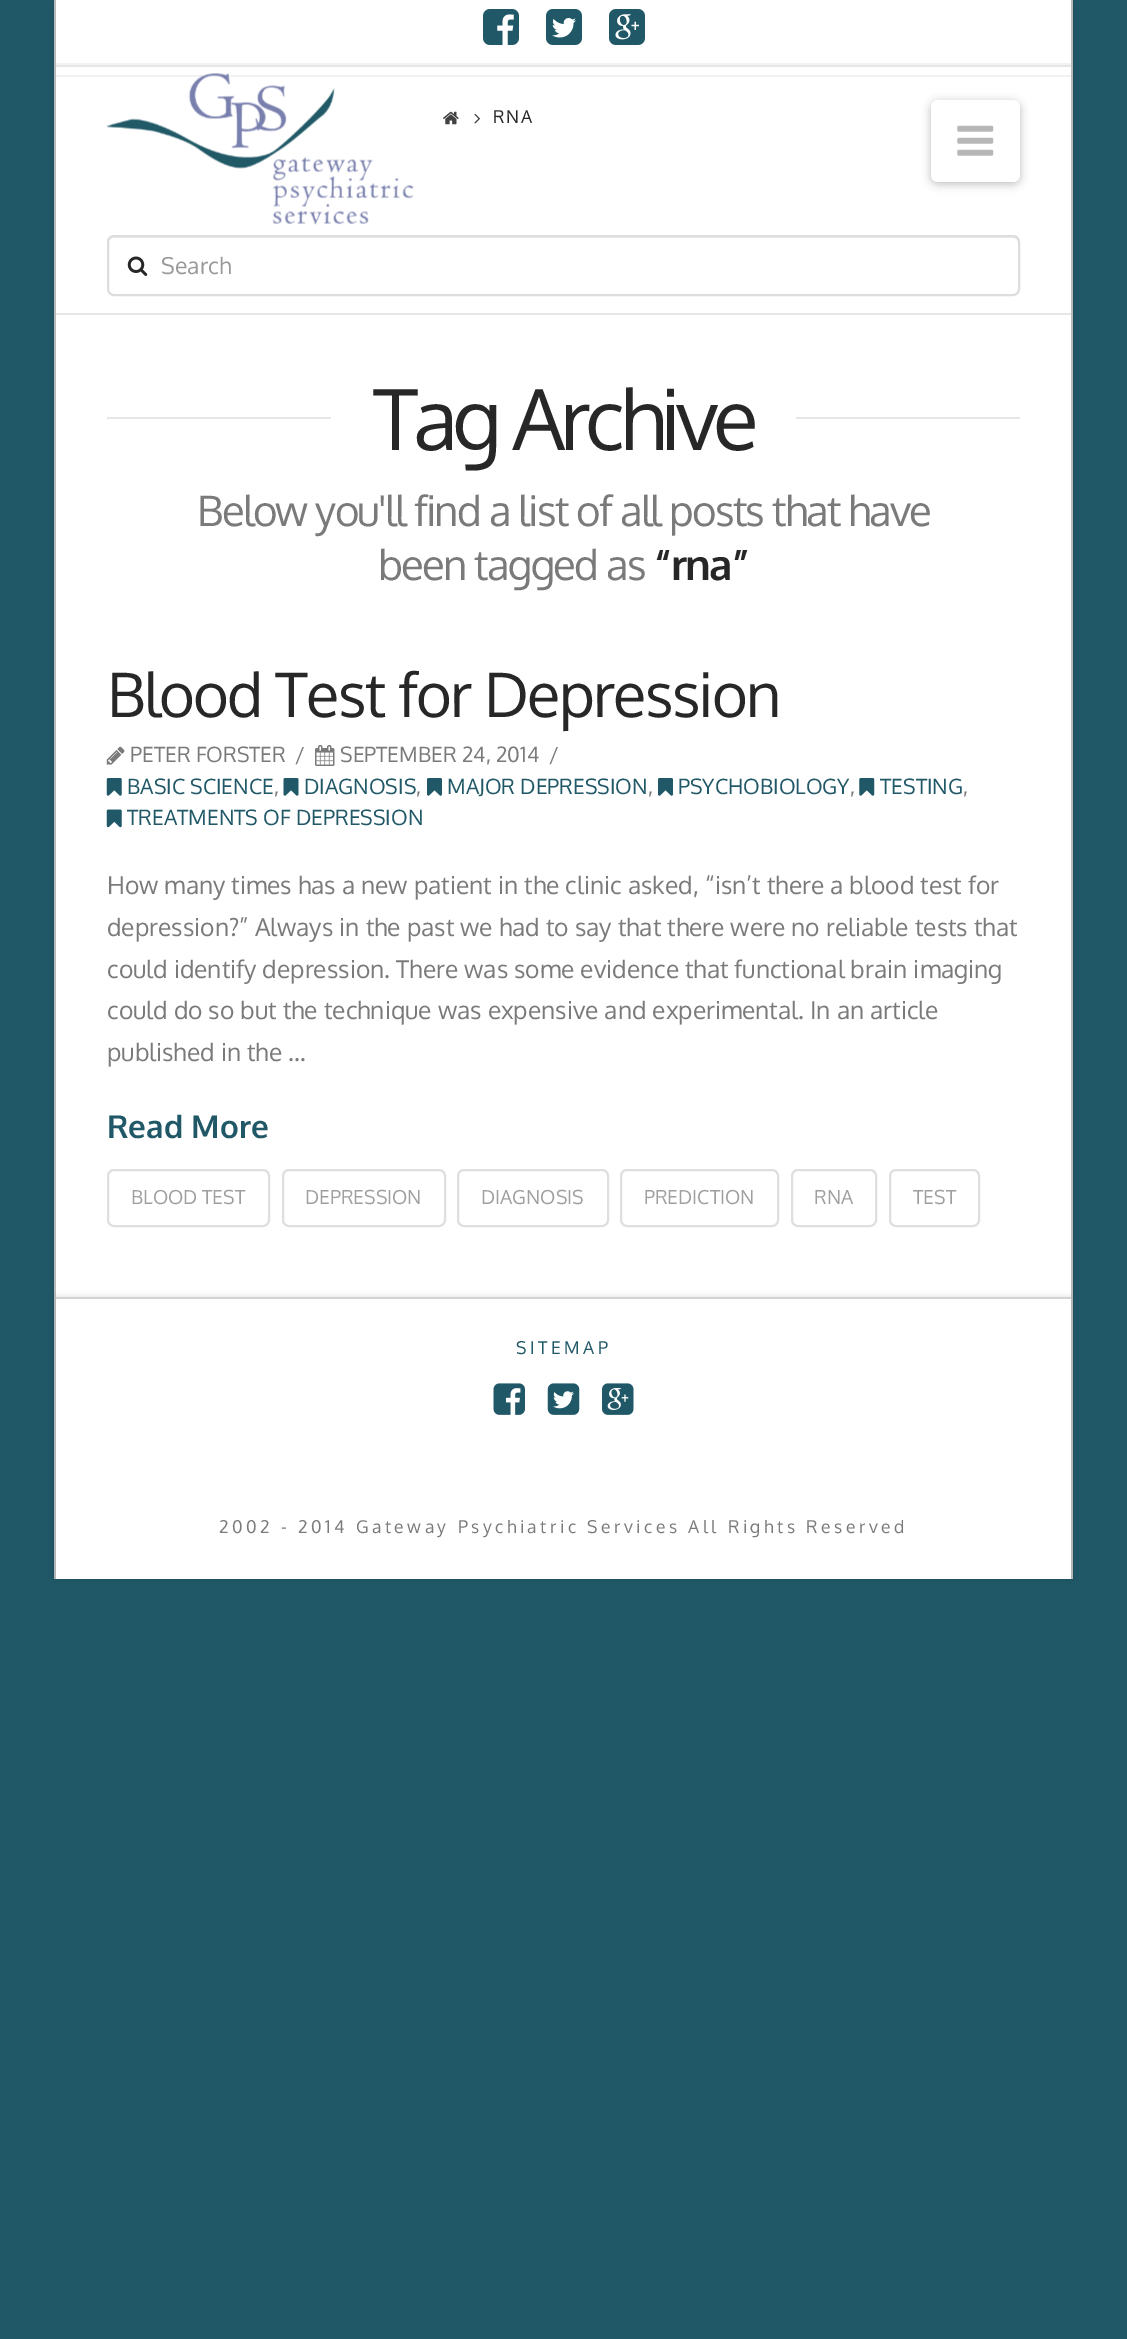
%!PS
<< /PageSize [1127 2339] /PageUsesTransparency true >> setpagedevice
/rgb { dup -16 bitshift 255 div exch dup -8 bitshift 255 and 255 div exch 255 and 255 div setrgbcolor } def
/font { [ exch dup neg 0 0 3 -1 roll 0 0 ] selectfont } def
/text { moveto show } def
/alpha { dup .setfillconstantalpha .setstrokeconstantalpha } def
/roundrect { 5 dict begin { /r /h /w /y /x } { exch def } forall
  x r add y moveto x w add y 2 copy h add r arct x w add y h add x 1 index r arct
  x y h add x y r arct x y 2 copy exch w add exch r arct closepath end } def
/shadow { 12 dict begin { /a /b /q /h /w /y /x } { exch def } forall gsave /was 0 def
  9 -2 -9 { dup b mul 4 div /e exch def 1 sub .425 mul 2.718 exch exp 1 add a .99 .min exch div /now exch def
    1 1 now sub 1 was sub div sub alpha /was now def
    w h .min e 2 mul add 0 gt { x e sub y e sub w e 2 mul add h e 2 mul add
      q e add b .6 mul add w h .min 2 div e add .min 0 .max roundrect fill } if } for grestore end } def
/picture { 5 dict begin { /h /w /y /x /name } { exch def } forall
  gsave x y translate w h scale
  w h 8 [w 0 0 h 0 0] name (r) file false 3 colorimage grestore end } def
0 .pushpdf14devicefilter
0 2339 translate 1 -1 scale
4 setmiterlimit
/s1 { /Oxygen-Regular 23 font 16#999999 rgb } def
/s2 { /Oxygen-Regular 21 font 16#7A7A7A rgb } def
/s3 { /Oxygen-Regular 21 font 16#205867 rgb } def
/s4 { /Oxygen-Regular 24.5 font 16#7A7A7A rgb } def
/s5 { /Oxygen-Bold 31.5 font 16#205867 rgb } def
/s6 { /Oxygen-Regular 19.25 font 16#9F9F9F rgb } def
16#205867 rgb
0 0 1127 2339 rectfill
16#000000 rgb
54 0 1019 1579 0 4.5 0.12 shadow
16#FFFFFF rgb
56 0 1015 1297 rectfill
16#B9B9B9 rgb
1071 0 2 1579 rectfill
54 0 2 1579 rectfill
16#F2F2F2 rgb
56 63 1015 2 rectfill
(pic1.raw) 483 9 36 36 picture
(pic2.raw) 546 9 36 36 picture
(pic3.raw) 609 9 36 36 picture
16#E6E6E6 rgb
56 65 1015 2 rectfill
16#F2F2F2 rgb
56 75 1015 2 rectfill
(pic4.raw) 106 73 308 152 picture
16#000000 rgb
931 102 89 82 7 4.5 0.25 shadow
16#FFFFFF rgb
931 100 89 82 7 roundrect fill
(pic5.raw) 957 125 37 31 picture
16#E6E6E6 rgb
56 313 1015 2 rectfill
(pic6.raw) 443 111 16 14 picture
(pic7.raw) 474 113 6 11 picture
/Oxygen-Regular 17.5 font
16#272727 rgb
493 123 moveto 2 0 (RNA) ashow
16#ECECEC rgb
114 238 moveto 1013 238 lineto 1016 238 1018 240 1018 243 curveto 1018 290 lineto 1018 293 lineto 1018 292 1019 290 1019 289 curveto 1019 241 lineto 1019 238 1017 236 1014 236 curveto 114 236 lineto 112 236 109 238 109 240 curveto 110 239 112 238 114 238 curveto closepath fill
16#DDDDDD rgb
2 setlinewidth
108 236 911 59 6 roundrect stroke
(pic8.raw) 127 256 21 20 picture
s1
(Search) 161 274 text
16#E6E6E6 rgb
107 417 224 2 rectfill
/Oxygen-Regular 84 font
16#272727 rgb
373 450 moveto -5.25 0 (Tag Archive) ashow
16#E6E6E6 rgb
796 417 224 2 rectfill
/Oxygen-Regular 42 font
16#7A7A7A rgb
197 526 moveto -1.75 0 (Below you'll find a list of all posts that have) ashow
378 580 moveto -1.75 0 (been tagged as) ashow
/Oxygen-Bold 42 font
16#272727 rgb
653 580 moveto -1.75 0 (“rna”) ashow
/Oxygen-Regular 61.25 font
107 717 moveto -1.75 0 (Blood Test for Depression) ashow
(pic9.raw) 106 746 19 19 picture
s2
(PETER FORSTER) 130 762 text
(/) 295 762 text
(pic10.raw) 315 745 20 21 picture
(SEPTEMBER 24, 2014) 340 762 text
(/) 549 762 text
(pic11.raw) 106 778 16 18 picture
s3
(BASIC SCIENCE) 127 794 text
s2
(,) 274 794 text
(pic12.raw) 283 778 16 18 picture
s3
(DIAGNOSIS) 304 794 text
s2
(,) 416 794 text
(pic13.raw) 427 778 15 18 picture
s3
(MAJOR DEPRESSION) 447 794 text
s2
(,) 648 794 text
(pic13.raw) 658 778 15 18 picture
s3
(PSYCHOBIOLOGY) 678 794 text
s2
(,) 850 794 text
(pic14.raw) 859 778 16 18 picture
s3
(TESTING) 880 794 text
s2
(,) 963 794 text
(pic15.raw) 106 809 16 19 picture
s3
(TREATMENTS OF DEPRESSION) 127 825 text
s4
(How many times has a new patient in the clinic asked, “isn’t there a blood test for) 107 894 text
(depression?” Always in the past we had to say that there were no reliable tests that) 107 936 text
(could identify depression. There was some evidence that functional brain imaging) 107 978 text
(could do so but the technique was expensive and experimental. In an article) 107 1019 text
(published in the …) 107 1061 text
s5
(Read More) 107 1138 text
16#DFDFDF rgb
108 1170 161 56 6 roundrect stroke
s6
(BLOOD TEST) 131 1204 text
16#DFDFDF rgb
283 1170 162 56 6 roundrect stroke
s6
(DEPRESSION) 305 1204 text
16#DFDFDF rgb
458 1170 150 56 6 roundrect stroke
s6
(DIAGNOSIS) 481 1204 text
16#DFDFDF rgb
621 1170 157 56 6 roundrect stroke
s6
(PREDICTION) 644 1204 text
16#DFDFDF rgb
792 1170 84 56 6 roundrect stroke
s6
(RNA) 814 1204 text
16#DFDFDF rgb
890 1170 89 56 6 roundrect stroke
s6
(TEST) 913 1204 text
16#000000 rgb
56 1295 1015 282 0 2 0.07 shadow
16#FFFFFF rgb
56 1299 1015 280 rectfill
16#D4D4D4 rgb
56 1297 1015 2 rectfill
/Oxygen-Regular 17.5 font
16#205867 rgb
516 1354 moveto 3.5 0 (SITEMAP) ashow
(pic16.raw) 493 1383 32 32 picture
(pic17.raw) 547 1383 33 32 picture
(pic18.raw) 602 1383 32 32 picture
16#7A7A7A rgb
219 1533 moveto 3.5 0 (2002 - 2014 Gateway Psychiatric Services All Rights Reserved) ashow
.poppdf14devicefilter showpage
